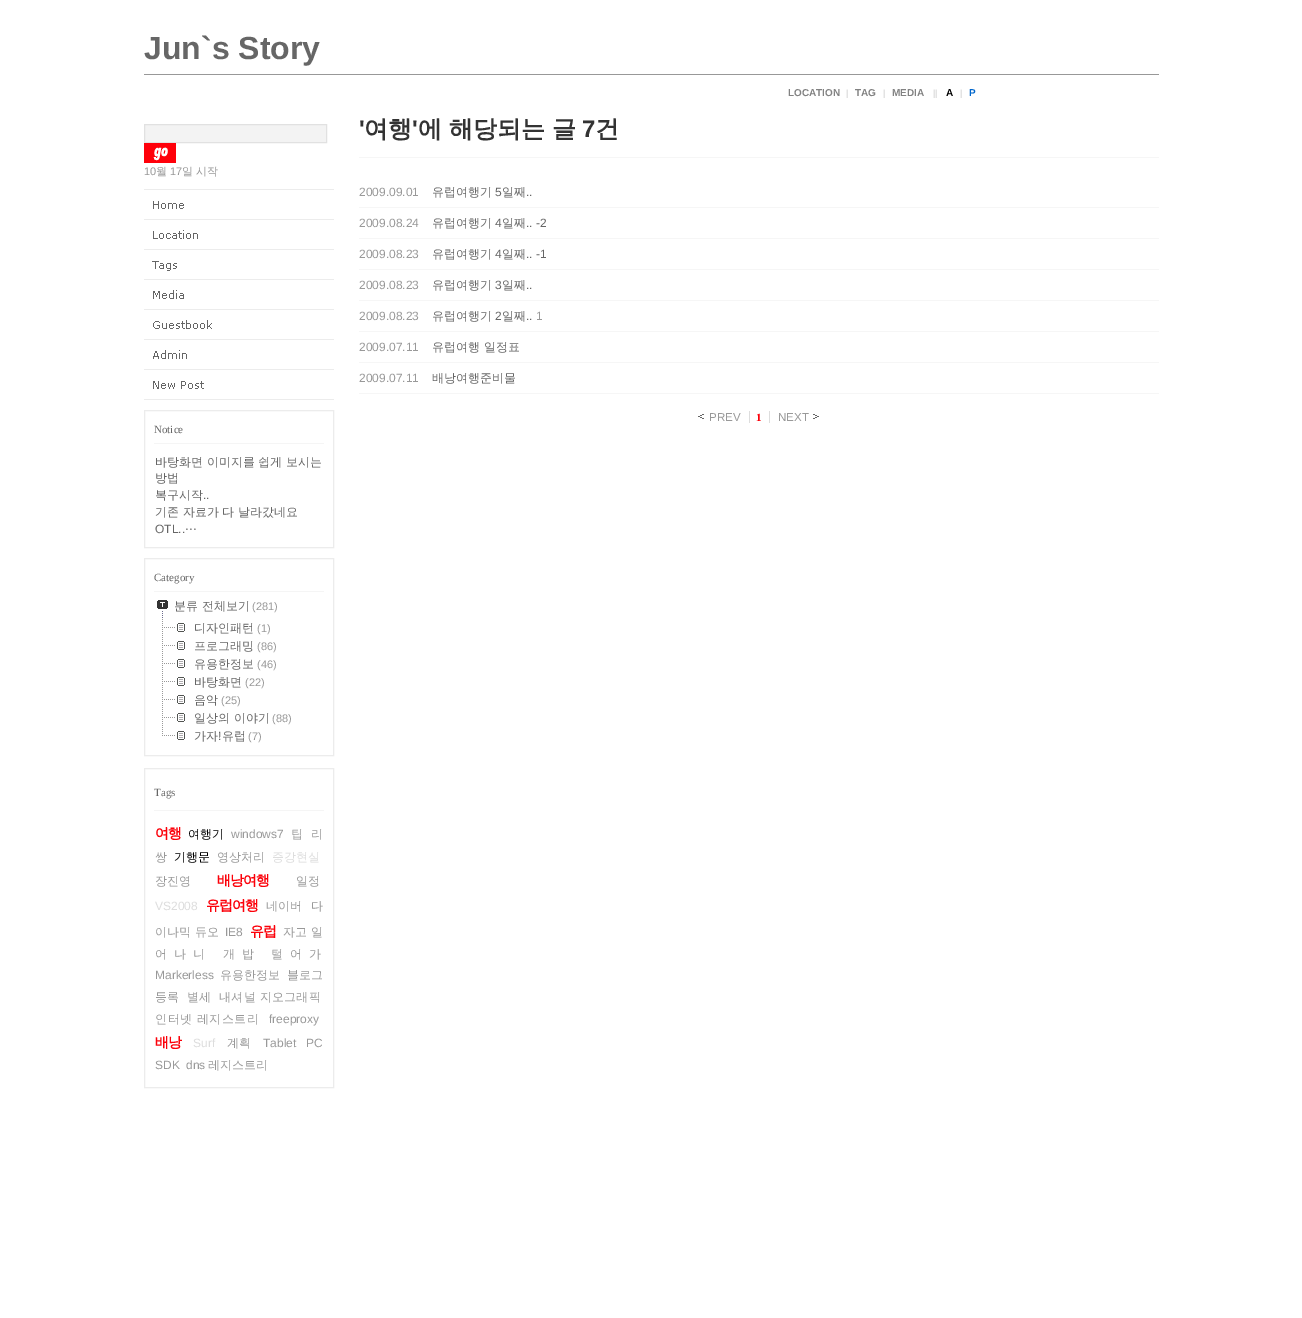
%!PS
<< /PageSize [1302 1318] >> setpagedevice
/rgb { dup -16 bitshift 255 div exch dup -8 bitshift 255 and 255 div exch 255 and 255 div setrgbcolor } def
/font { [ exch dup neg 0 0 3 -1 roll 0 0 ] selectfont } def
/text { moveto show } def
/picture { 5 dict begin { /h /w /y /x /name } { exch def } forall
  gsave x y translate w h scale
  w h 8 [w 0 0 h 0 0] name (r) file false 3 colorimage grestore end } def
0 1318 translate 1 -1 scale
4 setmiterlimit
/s1 { /LiberationSans-Bold 32 font 16#666666 rgb } def
/s2 { /LiberationSans-Bold 10 font 16#828282 rgb } def
/s3 { /LiberationSans-Regular 9 font 16#CCCCCC rgb } def
/s4 { /LiberationSans-Bold 10 font 16#000000 rgb } def
/s5 { /LiberationSans-Bold 10 font 16#0066CC rgb } def
/s6 { /LiberationSans-Regular 11 font 16#999999 rgb } def
/s7 { /WenQuanYiZenHei-Medium 11 font 16#999999 rgb } def
/s8 { /LiberationSerif-Regular 11 font 16#666666 rgb } def
/s9 { /WenQuanYiZenHei-Medium 12 font 16#666666 rgb } def
/s10 { /LiberationSans-Regular 12 font 16#666666 rgb } def
/s11 { /DejaVuSans-Regular 12 font 16#666666 rgb } def
/s12 { /WenQuanYiZenHei-Medium 12 font 16#000000 rgb } def
/s13 { /LiberationSans-Regular 12 font 16#999999 rgb } def
/s14 { /WenQuanYiZenHei-Medium 12 font 16#999999 rgb } def
/s15 { /WenQuanYiZenHei-Medium 12 font 16#DDDDDD rgb } def
/s16 { /LiberationSans-Regular 12 font 16#DDDDDD rgb } def
/s17 { /LiberationSans-Bold 24 font 16#333333 rgb } def
/s18 { /WenQuanYiZenHei-Bold 24 font 16#333333 rgb } def
/s19 { /LiberationSans-Regular 11.5 font 16#999999 rgb } def
/s20 { /LiberationSerif-Bold 11 font 16#FC010A rgb } def
16#FFFFFF rgb
0 0 1302 1318 rectfill
16#989898 rgb
144 74 1015 1 rectfill
s1
(Jun`s Story) 144 59 text
s2
(LOCATION) 788 96 text
s3
(|) 846 96 text
s2
(TAG) 855 96 text
s3
(|) 883 96 text
s2
(MEDIA) 892 96 text
s3
(||) 933 96 text
s4
(A) 946 96 text
s3
(|) 960 96 text
s5
(P) 969 96 text
16#F3F3F3 rgb
144.5 124.5 moveto 326.5 124.5 lineto 326.5 142.5 lineto 144.5 142.5 lineto closepath gsave fill grestore
16#E1E1E1 rgb
stroke
(pic1.raw) 144 143 32 20 picture
16#ECECEC rgb
144 189 190 1 rectfill
s6
(10) 144 175 text
s7
(월) 156 175 text
s6
(17) 170 175 text
s7
(일 시작) 182 175 text
(pic2.raw) 153 201 31 8 picture
16#ECECEC rgb
144 219 190 1 rectfill
(pic3.raw) 153 230 45 9 picture
144 249 190 1 rectfill
(pic4.raw) 152 261 25 10 picture
144 279 190 1 rectfill
(pic5.raw) 153 290 31 9 picture
144 309 190 1 rectfill
(pic6.raw) 153 320 59 9 picture
144 339 190 1 rectfill
(pic7.raw) 153 350 34 9 picture
144 369 190 1 rectfill
(pic8.raw) 153 381 51 8 picture
144 399 190 1 rectfill
144.5 410.5 189 137 rectstroke
16#F5F5F5 rgb
154 443 170 1 rectfill
s8
(Notice) 154 433 text
s9
(바탕화면 이미지를 쉽게 보시는) 155 466 text
(방법) 155 482 text
(복구시작) 155 499 text
s10
(..) 203 499 text
s9
(기존 자료가 다 날라갔네요) 155 516 text
s10
(OTL..) 155 533 text
s11
(⋯) 185 533 text
16#ECECEC rgb
144.5 558.5 189 197 rectstroke
16#F5F5F5 rgb
154 591 170 1 rectfill
s8
(Category) 154 581 text
(pic9.raw) 157 600 11 18 picture
s9
(분류 전체보기) 174 610 text
s6
(\(281\)) 252 610 text
(pic10.raw) 162 619 1 17 picture
(pic11.raw) 164 623 21 9 picture
s9
(디자인패턴) 194 632 text
s6
(\(1\)) 257 632 text
(pic10.raw) 162 637 1 17 picture
(pic11.raw) 164 641 21 9 picture
s9
(프로그래밍) 194 650 text
s6
(\(86\)) 257 650 text
(pic10.raw) 162 655 1 17 picture
(pic11.raw) 164 659 21 9 picture
s9
(유용한정보) 194 668 text
s6
(\(46\)) 257 668 text
(pic10.raw) 162 673 1 17 picture
(pic11.raw) 164 677 21 9 picture
s9
(바탕화면) 194 686 text
s6
(\(22\)) 245 686 text
(pic10.raw) 162 691 1 17 picture
(pic11.raw) 164 695 21 9 picture
s9
(음악) 194 704 text
s6
(\(25\)) 221 704 text
(pic10.raw) 162 709 1 17 picture
(pic11.raw) 164 713 21 9 picture
s9
(일상의 이야기) 194 722 text
s6
(\(88\)) 272 722 text
(pic12.raw) 162 727 1 9 picture
(pic11.raw) 164 731 21 9 picture
s9
(가자 유럽) 194 740 text
s10
(!) 218 740 text
s6
(\(7\)) 248 740 text
16#ECECEC rgb
144.5 768.5 189 319 rectstroke
16#F5F5F5 rgb
154 810 170 1 rectfill
s8
(Tags) 154 796 text
/WenQuanYiZenHei-Bold 14 font
16#FC010A rgb
155 838 moveto -1 0 (여행) ashow
s12
(여행기) 188 838 text
s13
(windows7) 231 838 text
s14
(팁) 291 838 text
(리) 311 838 text
(쌍) 155 861 text
s12
(기행문) 174 861 text
s14
(영상처리) 217 861 text
s15
(증강현실) 272 861 text
s14
(장진영) 155 885 text
/WenQuanYiZenHei-Bold 14 font
16#FC010A rgb
217 885 moveto -1 0 (배낭여행) ashow
s14
(일정) 296 885 text
s16
(VS2008) 155 910 text
/WenQuanYiZenHei-Bold 14 font
16#FC010A rgb
206 910 moveto -1 0 (유럽여행) ashow
s14
(네이버) 266 910 text
(다) 311 910 text
(이나믹 듀오) 155 936 text
s13
(IE8) 225 936 text
/WenQuanYiZenHei-Bold 14 font
16#FC010A rgb
250 936 moveto -1 0 (유럽) ashow
s14
(자고 일) 283 936 text
155 958 moveto 7 0 (어나니 개밥 털어가) ashow
s13
(Markerless) 155 979 text
s14
(유용한정보) 220 979 text
(블로그) 287 979 text
(등록) 155 1001 text
(별세) 187 1001 text
219 1001 moveto 0.25 0 (내셔널 지오그래픽) ashow
155 1023 moveto 0.5 0 (인터넷 레지스트리) ashow
s13
(freeproxy) 269 1023 text
/WenQuanYiZenHei-Bold 14 font
16#FC010A rgb
155 1047 moveto -1 0 (배낭) ashow
s16
(Surf) 193 1047 text
s14
(계획) 227 1047 text
/LiberationSans-Regular 12 font
263 1047 moveto 6 0 32 (Tablet PC) widthshow
(SDK) 155 1069 text
(dns) 186 1069 text
s14
(레지스트리) 208 1069 text
16#F6F6F6 rgb
359 157 800 1 rectfill
s17
(') 359 137 text
s18
(여행) 364 137 text
s17
(') 412 137 text
s18
(에 해당되는 글) 418 137 text
s17
(7) 582 137 text
s18
(건) 595 137 text
16#F6F6F6 rgb
359 207 800 1 rectfill
s13
(2009.09.01) 359 196 text
s9
(유럽여행기) 432 196 text
s10
(5) 495 196 text
s9
(일째) 502 196 text
s10
(..) 526 196 text
16#F6F6F6 rgb
359 238 800 1 rectfill
s13
(2009.08.24) 359 227 text
s9
(유럽여행기) 432 227 text
s10
(4) 495 227 text
s9
(일째) 502 227 text
s10
(.. -2) 526 227 text
16#F6F6F6 rgb
359 269 800 1 rectfill
s13
(2009.08.23) 359 258 text
s9
(유럽여행기) 432 258 text
s10
(4) 495 258 text
s9
(일째) 502 258 text
s10
(.. -1) 526 258 text
16#F6F6F6 rgb
359 300 800 1 rectfill
s13
(2009.08.23) 359 289 text
s9
(유럽여행기) 432 289 text
s10
(3) 495 289 text
s9
(일째) 502 289 text
s10
(..) 526 289 text
16#F6F6F6 rgb
359 331 800 1 rectfill
s13
(2009.08.23) 359 320 text
s9
(유럽여행기) 432 320 text
s10
(2) 495 320 text
s9
(일째) 502 320 text
s10
(..) 526 320 text
s13
(1) 536 320 text
16#F6F6F6 rgb
359 362 800 1 rectfill
s13
(2009.07.11) 359 351 text
s9
(유럽여행 일정표) 432 351 text
16#F6F6F6 rgb
359 393 800 1 rectfill
s13
(2009.07.11) 359 382 text
s9
(배낭여행준비물) 432 382 text
(pic13.raw) 698 414 6 5 picture
s19
(PREV) 709 421 text
s20
(1) 756 421 text
16#DDDDDD rgb
749 411 1 12 rectfill
769 411 1 12 rectfill
s19
(NEXT) 778 421 text
(pic14.raw) 813 414 6 5 picture
showpage
